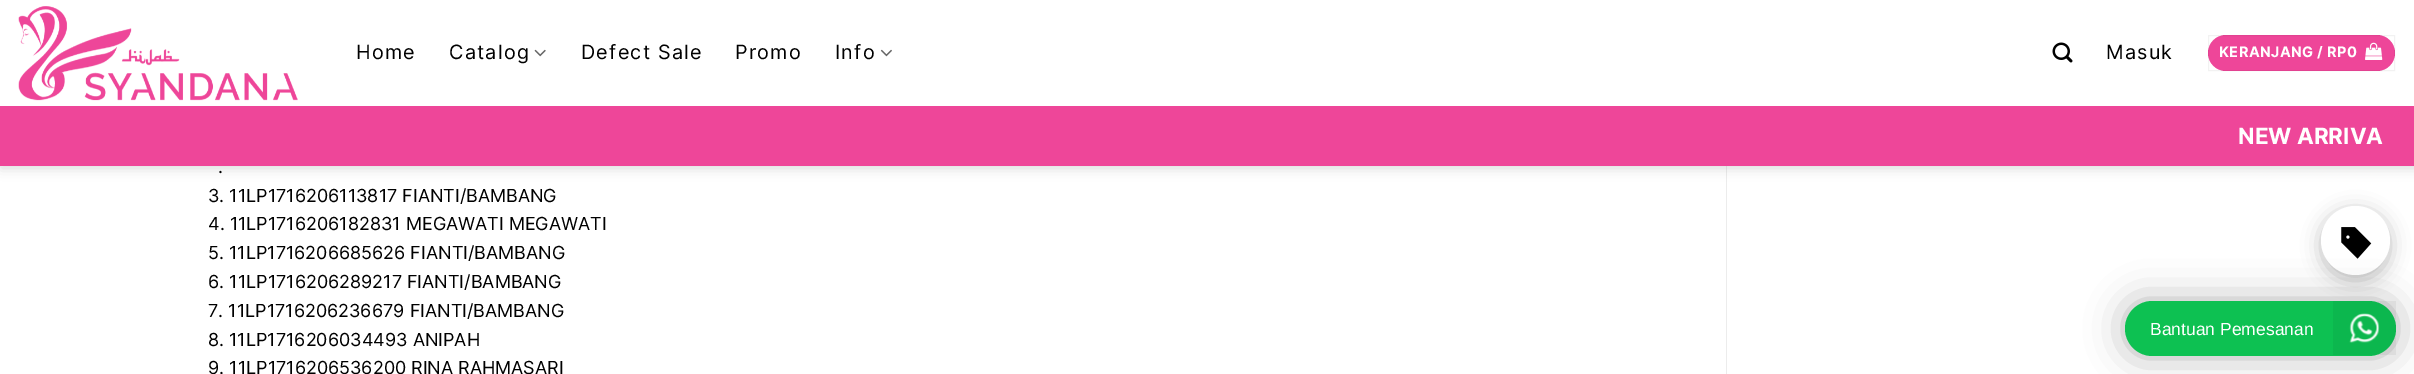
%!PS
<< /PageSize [2414 374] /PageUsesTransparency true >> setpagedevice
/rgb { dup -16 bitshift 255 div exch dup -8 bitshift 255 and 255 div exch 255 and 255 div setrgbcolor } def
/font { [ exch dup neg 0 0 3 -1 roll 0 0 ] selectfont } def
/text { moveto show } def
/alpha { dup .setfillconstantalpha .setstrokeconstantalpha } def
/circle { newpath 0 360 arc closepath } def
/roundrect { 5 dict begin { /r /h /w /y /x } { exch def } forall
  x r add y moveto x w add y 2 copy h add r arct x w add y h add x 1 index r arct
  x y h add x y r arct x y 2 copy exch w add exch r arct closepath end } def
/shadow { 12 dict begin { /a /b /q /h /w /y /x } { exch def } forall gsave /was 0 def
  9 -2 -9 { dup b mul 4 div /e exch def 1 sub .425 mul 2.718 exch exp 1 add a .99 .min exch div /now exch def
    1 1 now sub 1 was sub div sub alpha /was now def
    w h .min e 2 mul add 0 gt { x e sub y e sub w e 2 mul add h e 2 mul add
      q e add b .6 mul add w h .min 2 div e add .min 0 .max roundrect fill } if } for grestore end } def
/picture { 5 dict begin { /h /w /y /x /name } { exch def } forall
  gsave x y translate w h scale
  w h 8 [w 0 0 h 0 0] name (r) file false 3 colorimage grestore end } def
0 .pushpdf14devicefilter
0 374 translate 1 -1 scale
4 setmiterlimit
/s1 { /Inter-Bold 22.5 font 16#FFFFFF rgb } def
/s2 { /Inter-Regular 18 font 16#000000 rgb } def
/s3 { /LiberationSans-Regular 17.5 font 16#FFFFFF rgb } def
16#FFFFFF rgb
0 0 2414 374 rectfill
16#ECECEC rgb
1726 166 1 208 rectfill
16#000000 rgb
1 1 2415 167 0 6 0.15 shadow
16#FFFFFF rgb
0 0 2414 106 rectfill
(pic1.raw) 18 6 280 95 picture
/Inter-Regular 19.75 font
16#000000 rgb
356 59 moveto 1.25 0 (Home) ashow
449 59 moveto 1.25 0 (Catalog) ashow
(pic2.raw) 534 49 12 8 picture
581 59 moveto 1.25 0 (Defect Sale) ashow
735 59 moveto 1.25 0 (Promo) ashow
835 59 moveto 1.25 0 (Info) ashow
(pic3.raw) 880 49 12 8 picture
(pic4.raw) 2052 42 21 21 picture
2106 59 moveto 1.25 0 (Masuk) ashow
16#EE4699 rgb
2208 35 187 36 18 roundrect fill
0.05 alpha
16#000000 rgb
2208.5 35.5 186 35 rectstroke
/Inter-Bold 14.5 font
1 alpha
16#FFFFFF rgb
2219 57 moveto 0.4 0 (KERANJANG / RP0) ashow
(pic5.raw) 2365 42 18 18 picture
16#EE4699 rgb
0 106 2414 60 rectfill
s1
(NEW ARRIVA) 2238 144 text
s2
(.) 218 173 text
(3. 11LP1716206113817 FIANTI/BAMBANG) 208 202 text
(4. 11LP1716206182831 MEGAWATI MEGAWATI) 208 230 text
(5. 11LP1716206685626 FIANTI/BAMBANG) 208 259 text
(6. 11LP1716206289217 FIANTI/BAMBANG) 208 288 text
(7. 11LP1716206236679 FIANTI/BAMBANG) 208 317 text
(8. 11LP1716206034493 ANIPAH) 208 346 text
(9. 11LP1716206536200 RINA RAHMASARI) 208 374 text
2321 211 69 69 34.5 9.5 0.25 shadow
16#FFFFFF rgb
2355.5 240.5 34.5 circle fill
(pic6.raw) 2341 227 31 32 picture
16#000000 rgb
2125 301 271 55 27.5 19 0.3 shadow
16#0DC152 rgb
2125 301 271 55 27.5 roundrect fill
s3
(Bantuan Pemesanan) 2150 335 text
0.05 alpha
16#000000 rgb
2333 301 63 54 rectfill
1 alpha
(pic7.raw) 2349 313 31 30 picture
.poppdf14devicefilter showpage
